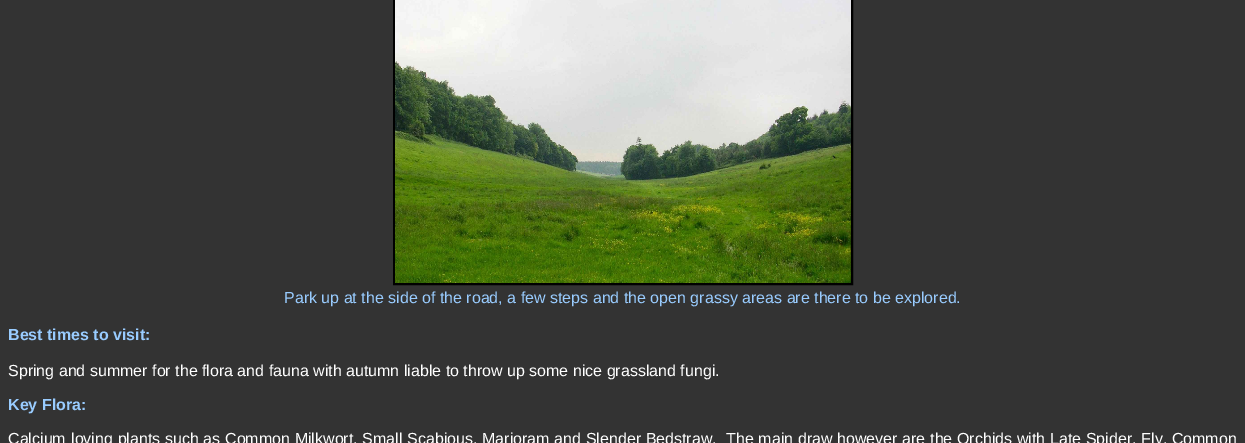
%!PS
<< /PageSize [1245 443] >> setpagedevice
/rgb { dup -16 bitshift 255 div exch dup -8 bitshift 255 and 255 div exch 255 and 255 div setrgbcolor } def
/font { [ exch dup neg 0 0 3 -1 roll 0 0 ] selectfont } def
/text { moveto show } def
/picture { 5 dict begin { /h /w /y /x /name } { exch def } forall
  gsave x y translate w h scale
  w h 8 [w 0 0 h 0 0] name (r) file false 3 colorimage grestore end } def
0 443 translate 1 -1 scale
4 setmiterlimit
/s1 { /LiberationSans-Regular 16 font 16#99CCFF rgb } def
/s2 { /LiberationSans-Bold 16 font 16#99CCFF rgb } def
/s3 { /LiberationSans-Regular 16 font 16#FFFFFF rgb } def
16#333333 rgb
0 0 1245 443 rectfill
16#000000 rgb
2 setlinewidth
394 -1 458 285 rectstroke
(pic1.raw) 395 0 456 283 picture
s1
(Park up at the side of the road, a few steps and the open grassy areas are there to be explored.) 284 303 text
s2
(Best times to visit:) 8 340 text
s3
(Spring and summer for the flora and fauna with autumn liable to throw up some nice grassland fungi.) 8 376 text
s2
(Key Flora:) 8 410 text
s3
(Calcium) 8 444 text
71 444 moveto 0.25 0 32 (loving plants such as Common Milkwort, Small Scabious, Marjoram and Slender Bedstraw.  The main draw however are the Orchids with Late Spider, Fly, Common) widthshow
showpage
